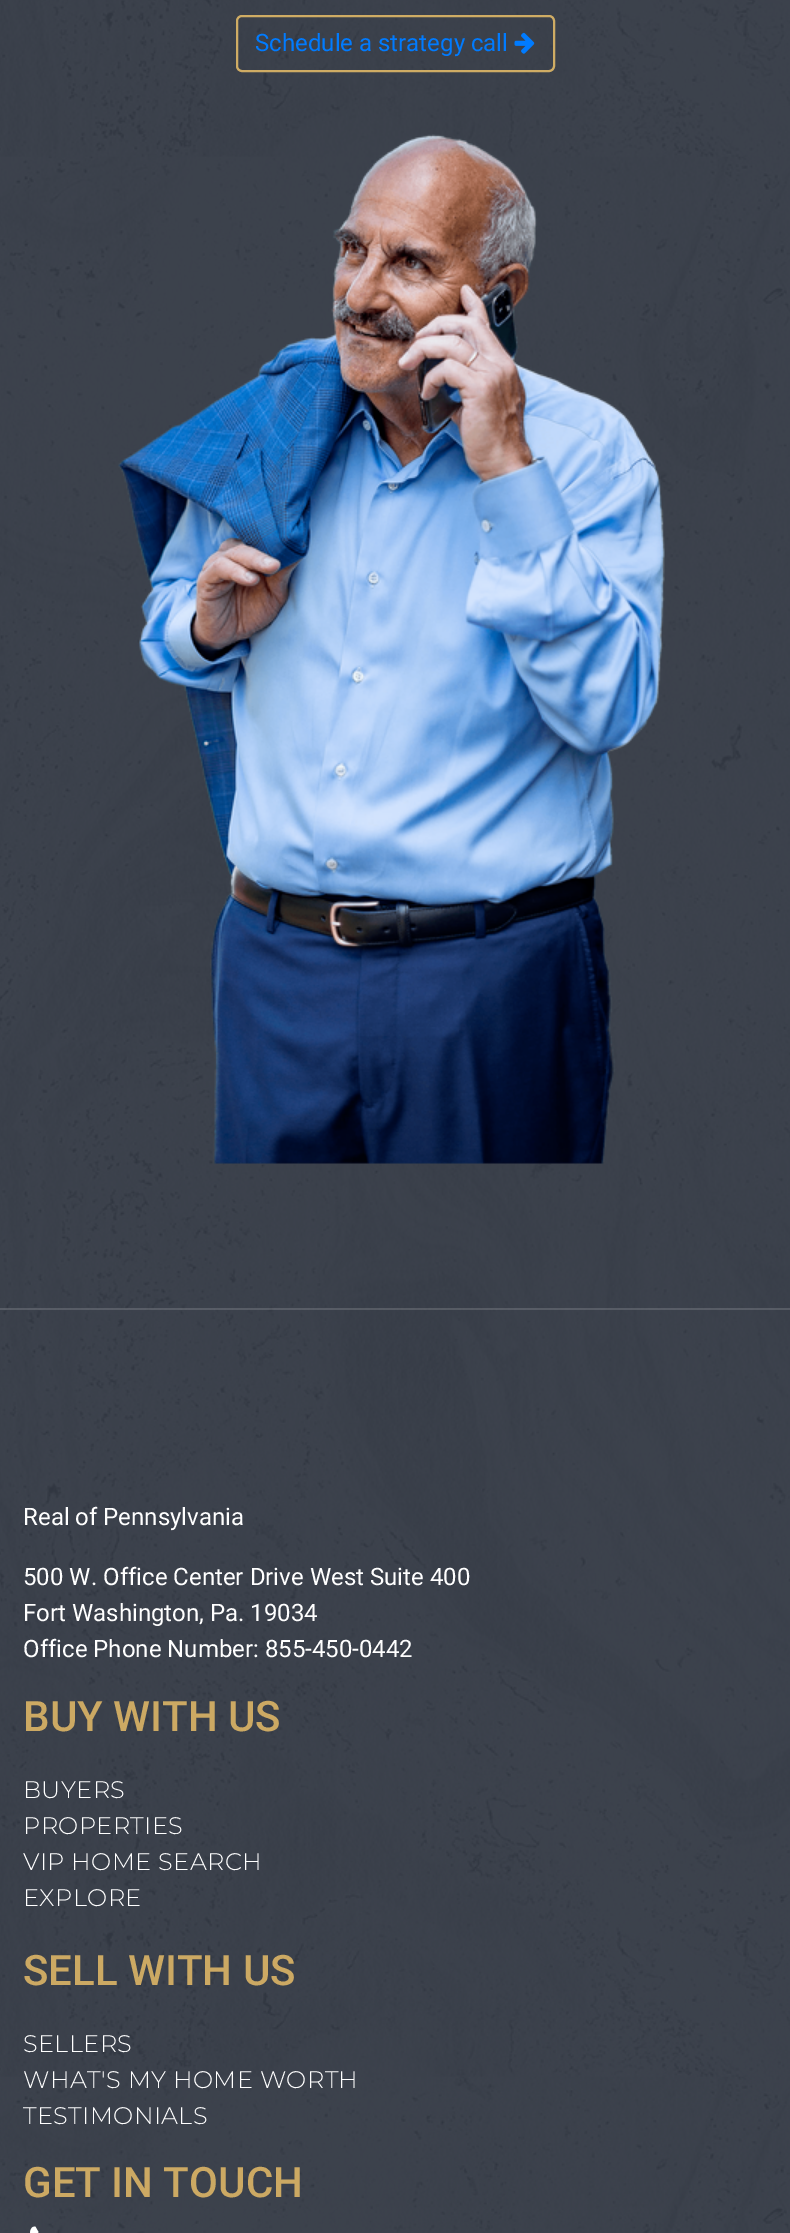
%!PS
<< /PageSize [790 2233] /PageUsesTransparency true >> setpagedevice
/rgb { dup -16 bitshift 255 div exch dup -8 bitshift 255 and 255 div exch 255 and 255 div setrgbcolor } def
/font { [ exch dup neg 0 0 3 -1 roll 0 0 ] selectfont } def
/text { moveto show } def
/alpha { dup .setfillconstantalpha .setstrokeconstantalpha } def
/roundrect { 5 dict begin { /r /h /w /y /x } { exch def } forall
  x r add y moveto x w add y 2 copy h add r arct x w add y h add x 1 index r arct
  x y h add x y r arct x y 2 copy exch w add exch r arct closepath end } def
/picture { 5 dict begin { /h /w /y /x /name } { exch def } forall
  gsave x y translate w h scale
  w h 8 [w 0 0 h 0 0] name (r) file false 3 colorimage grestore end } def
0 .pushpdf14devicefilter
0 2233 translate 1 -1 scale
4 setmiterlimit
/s1 { /Roboto-Regular 24 font 16#007BFF rgb } def
/s2 { /Roboto-Regular 24 font 16#FFFFFF rgb } def
/s3 { /Roboto-Medium 42 font 16#CCA963 rgb } def
16#FFFFFF rgb
0 0 790 2233 rectfill
(pic1.raw) 0 0 790 2233 picture
16#CFAC64 rgb
2 setlinewidth
237 16 317 55 5 roundrect stroke
s1
(Schedule a strategy call) 255 51 text
(pic2.raw) 514 32 21 22 picture
(pic3.raw) 118 134 547 1030 picture
0.15 alpha
16#FFFFFF rgb
0 1308 790 2 rectfill
1 alpha
(Real of Pennsylvania) 23 1525 text
(500 W. Office Center Drive West Suite 400) 23 1585 text
(Fort Washington, Pa. 19034) 23 1621 text
(Office Phone Number: 855-450-0442) 23 1657 text
s3
(BUY WITH US) 23 1731 text
/Montserrat-Light 24 font
16#FFFFFF rgb
23 1798 moveto 0.4 0 (BUYERS) ashow
23 1834 moveto 0.4 0 (PROPERTIES) ashow
23 1870 moveto 0.4 0 (VIP HOME SEARCH) ashow
23 1906 moveto 0.4 0 (EXPLORE) ashow
s3
(SELL WITH US) 23 1985 text
/Montserrat-Light 24 font
16#FFFFFF rgb
23 2052 moveto 0.4 0 (SELLERS) ashow
23 2088 moveto 0.4 0 (WHAT'S MY HOME WORTH) ashow
23 2124 moveto 0.4 0 (TESTIMONIALS) ashow
s3
(GET IN TOUCH) 23 2197 text
(pic4.raw) 30 2226 9 7 picture
.poppdf14devicefilter showpage
